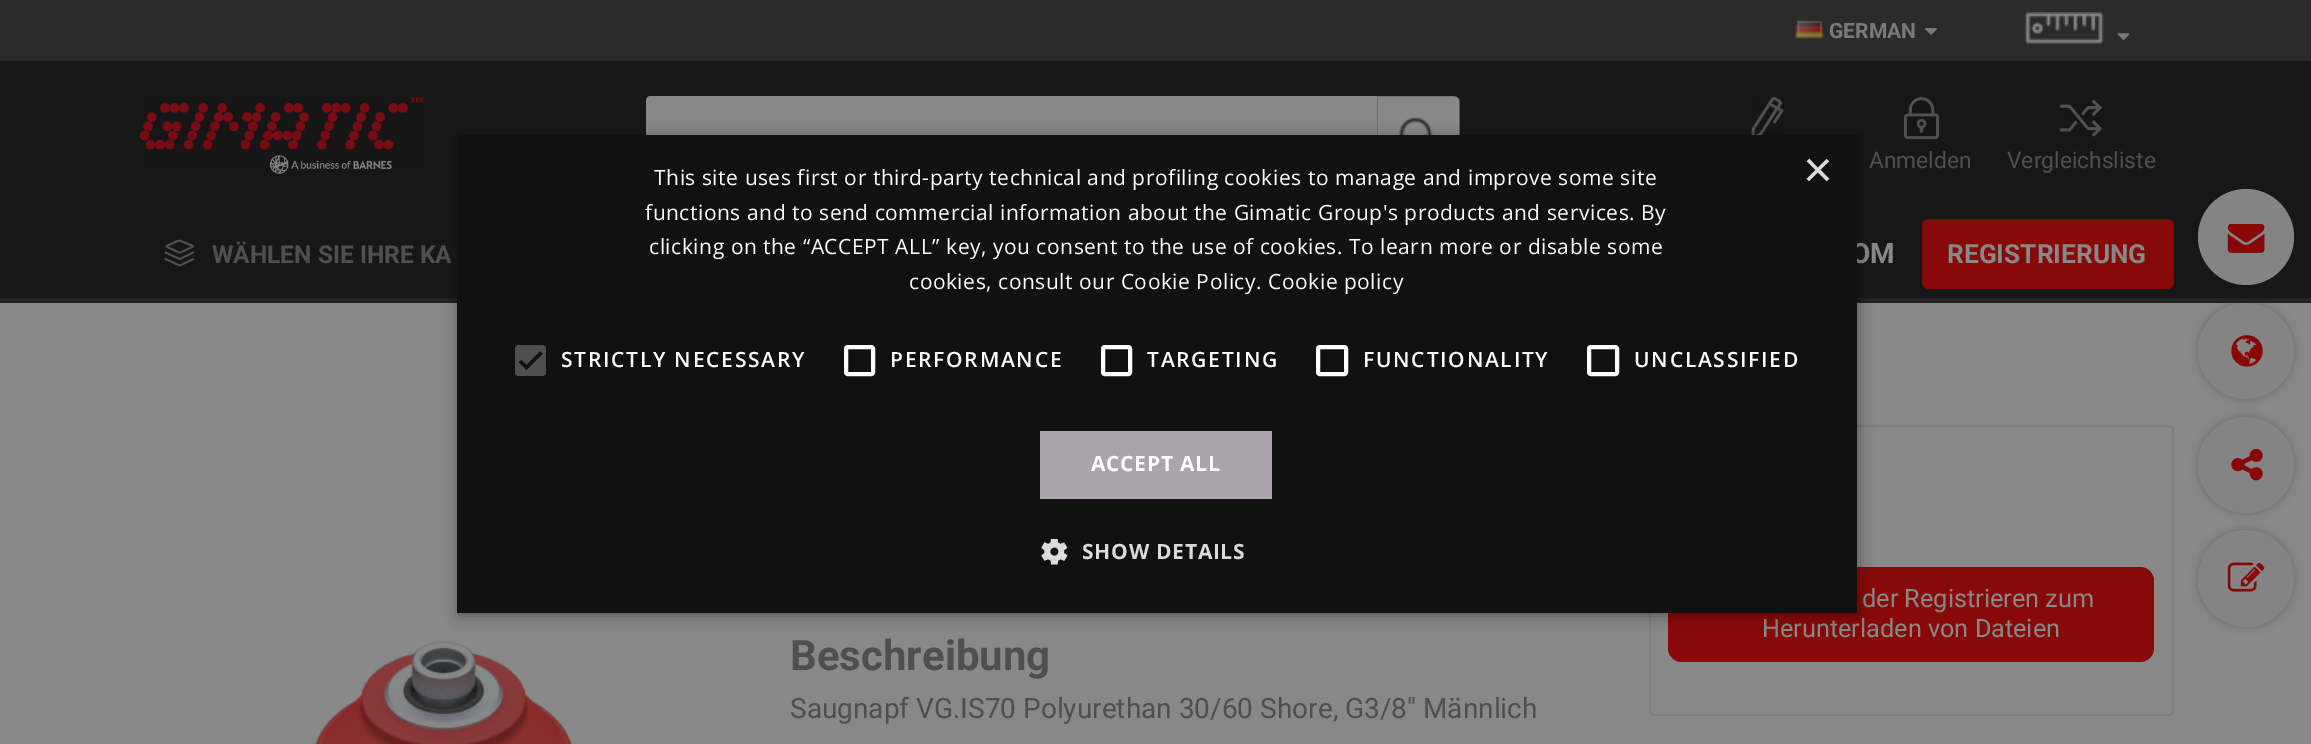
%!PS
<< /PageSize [2311 744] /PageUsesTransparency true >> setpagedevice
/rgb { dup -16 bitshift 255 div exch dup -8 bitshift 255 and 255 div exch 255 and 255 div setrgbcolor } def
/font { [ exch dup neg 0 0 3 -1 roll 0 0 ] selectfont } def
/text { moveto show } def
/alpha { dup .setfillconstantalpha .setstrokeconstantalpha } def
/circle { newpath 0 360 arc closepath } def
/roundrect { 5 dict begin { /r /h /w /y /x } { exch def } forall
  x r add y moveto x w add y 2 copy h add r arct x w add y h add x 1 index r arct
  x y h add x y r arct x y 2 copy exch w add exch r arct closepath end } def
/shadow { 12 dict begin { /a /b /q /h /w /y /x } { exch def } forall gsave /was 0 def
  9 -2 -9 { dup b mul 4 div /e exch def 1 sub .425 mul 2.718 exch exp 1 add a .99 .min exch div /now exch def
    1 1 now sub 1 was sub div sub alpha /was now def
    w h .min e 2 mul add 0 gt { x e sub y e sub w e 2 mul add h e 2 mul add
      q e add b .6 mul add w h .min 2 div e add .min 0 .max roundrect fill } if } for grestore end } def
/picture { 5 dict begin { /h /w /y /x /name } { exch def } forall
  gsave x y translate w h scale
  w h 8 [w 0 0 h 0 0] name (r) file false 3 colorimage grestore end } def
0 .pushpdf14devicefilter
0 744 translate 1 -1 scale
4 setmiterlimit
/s1 { /Roboto-Bold 21 font 16#7A7A7A rgb } def
/s2 { /Roboto-Regular 22.75 font 16#4F4F4F rgb } def
/s3 { /Roboto-Bold 24.5 font 16#4F4F4F rgb } def
/s4 { /Roboto-Bold 28 font 16#888888 rgb } def
/s5 { /Roboto-Bold 26.25 font 16#888888 rgb } def
/s6 { /Roboto-Regular 25.25 font 16#888888 rgb } def
/s7 { /Roboto-Bold 42 font 16#4F4F4F rgb } def
/s8 { /Roboto-Regular 28 font 16#4F4F4F rgb } def
/s9 { /LiberationSans-Regular 51 font 16#DBDBDB rgb } def
16#888888 rgb
0 0 2311 744 rectfill
16#171717 rgb
0 61 2311 237 rectfill
16#2B2B2B rgb
0 0 2311 61 rectfill
(pic1.raw) 1795 19 29 20 picture
s1
(GERMAN) 1829 38 text
(pic2.raw) 1925 28 12 7 picture
(pic3.raw) 2024 12 80 32 picture
(pic4.raw) 2117 33 13 7 picture
(pic5.raw) 139 97 284 77 picture
16#878787 rgb
651 96 moveto 1377 96 lineto 1377 179 lineto 651 179 lineto 648 179 646 177 646 174 curveto 646 101 lineto 646 98 648 96 651 96 curveto closepath fill
651 96 moveto 1377 96 lineto 1377 178 lineto 651 178 lineto 648 178 646 176 646 173 curveto 646 102 lineto 646 99 648 96 651 96 curveto closepath 651 98 moveto 1377 98 lineto 1377 177 lineto 651 177 lineto 649 177 648 175 648 173 curveto 648 102 lineto 648 100 649 98 651 98 curveto closepath eofill
16#2B2B2B rgb
1377 96 moveto 1455 96 lineto 1458 96 1460 98 1460 101 curveto 1460 174 lineto 1460 177 1458 179 1455 179 curveto 1377 179 lineto closepath fill
(pic6.raw) 1377 96 83 39 picture
(pic7.raw) 1751 97 33 38 picture
(pic8.raw) 1904 97 36 43 picture
s2
(Anmelden) 1869 168 text
(pic9.raw) 2059 99 43 38 picture
(Vergleichsliste) 2007 168 text
16#222222 rgb
0 298 2311 5 rectfill
(pic10.raw) 164 239 31 28 picture
s3
(WÄHLEN SIE IHRE KA) 212 263 text
s4
(OM) 1851 263 text
16#880909 rgb
1922 219 252 70 7 roundrect fill
s5
(REGISTRIERUNG) 1947 263 text
16#848484 rgb
2246 237 48 circle fill
(pic11.raw) 2227 224 38 29 picture
16#090909 rgb
2198 303 96 96 48 4.5 0.25 shadow
16#848484 rgb
2246 351 48 circle fill
(pic12.raw) 2231 335 32 32 picture
16#090909 rgb
2198 417 96 96 48 4.5 0.25 shadow
16#848484 rgb
2246 465 48 circle fill
(pic13.raw) 2231 448 32 33 picture
16#090909 rgb
2198 530 96 97 48 4.5 0.25 shadow
16#848484 rgb
2198 530 96 97 48 roundrect fill
(pic14.raw) 2227 562 38 30 picture
(pic15.raw) 315 641 257 103 picture
16#808080 rgb
2 setlinewidth
1650 426 523 289 4 roundrect stroke
16#880909 rgb
1668 567 486 95 14 roundrect fill
s6
(der Registrieren zum) 1862 607 text
(Herunterladen von Dateien) 1762 637 text
s7
(Beschreibung) 790 670 text
s8
(Saugnapf VG.IS70 Polyurethan 30/60 Shore, G3/8″ Männlich) 790 718 text
16#000000 rgb
459 138 1400 478 0 7 0.35 shadow
16#111111 rgb
457 135 1400 478 rectfill
/OpenSans-Regular 21 font
16#FFFFFF rgb
654 185 moveto 0.53 0 (This site uses first or third-party technical and profiling cookies to manage and improve some site) ashow
645 220 moveto 0.53 0 (functions and to send commercial information about the Gimatic Group's products and services. By) ashow
649 254 moveto 0.53 0 (clicking on the “ACCEPT ALL” key, you consent to the use of cookies. To learn more or disable some) ashow
909 289 moveto 0.53 0 (cookies, consult our Cookie Policy. Cookie policy) ashow
s9
(×) 1803 187 text
16#4F4F4F rgb
515 345 31 31 4 roundrect fill
16#111111 rgb
3.2 setlinewidth
520 361 moveto 526.5 367.5 lineto 541.5 352.5 lineto stroke
/OpenSans-SemiBold 21 font
16#FFFFFF rgb
561 367 moveto 1.75 0 (STRICTLY NECESSARY) ashow
4 setlinewidth
846 347 27 27 2 roundrect stroke
890 367 moveto 1.75 0 (PERFORMANCE) ashow
1103 347 27 27 2 roundrect stroke
1147 367 moveto 1.75 0 (TARGETING) ashow
1318 347 28 27 2 roundrect stroke
1363 367 moveto 1.75 0 (FUNCTIONALITY) ashow
1589 347 28 27 2 roundrect stroke
1634 367 moveto 1.75 0 (UNCLASSIFIED) ashow
16#ADA3AD rgb
1040 431 232 68 rectfill
/OpenSans-Bold 21 font
16#FFFFFF rgb
1091 471 moveto 0.75 0 (ACCEPT ALL) ashow
(pic16.raw) 1041 539 27 26 picture
16#DBDBDB rgb
1082 559 moveto 0.75 0 (SHOW DETAILS) ashow
.poppdf14devicefilter showpage
